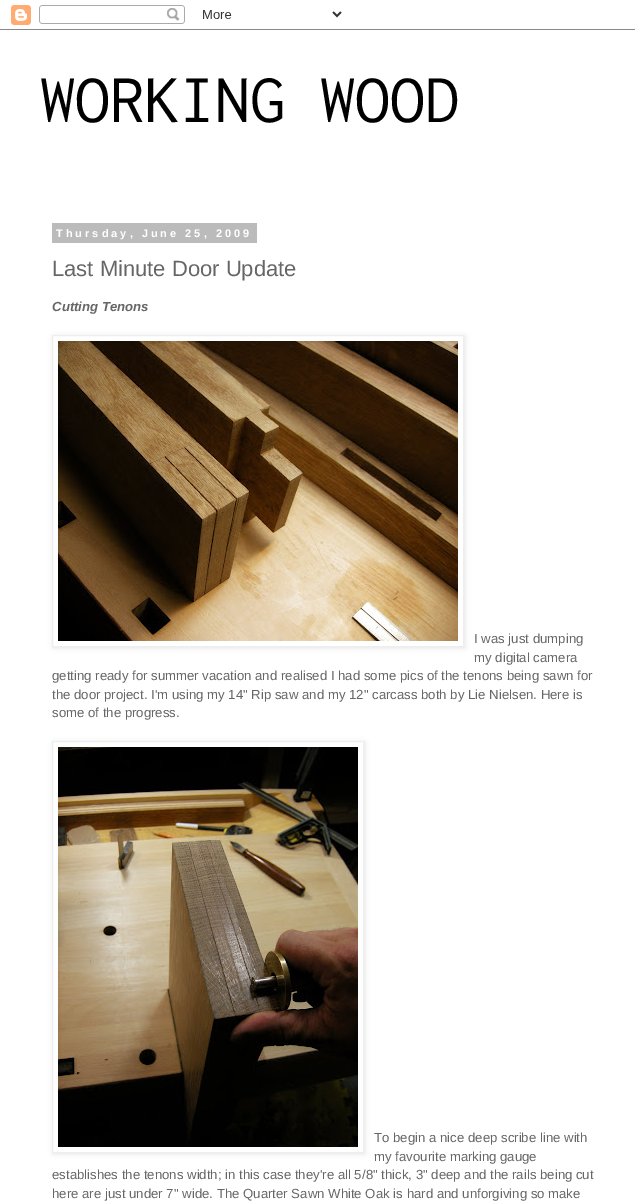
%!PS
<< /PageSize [635 1201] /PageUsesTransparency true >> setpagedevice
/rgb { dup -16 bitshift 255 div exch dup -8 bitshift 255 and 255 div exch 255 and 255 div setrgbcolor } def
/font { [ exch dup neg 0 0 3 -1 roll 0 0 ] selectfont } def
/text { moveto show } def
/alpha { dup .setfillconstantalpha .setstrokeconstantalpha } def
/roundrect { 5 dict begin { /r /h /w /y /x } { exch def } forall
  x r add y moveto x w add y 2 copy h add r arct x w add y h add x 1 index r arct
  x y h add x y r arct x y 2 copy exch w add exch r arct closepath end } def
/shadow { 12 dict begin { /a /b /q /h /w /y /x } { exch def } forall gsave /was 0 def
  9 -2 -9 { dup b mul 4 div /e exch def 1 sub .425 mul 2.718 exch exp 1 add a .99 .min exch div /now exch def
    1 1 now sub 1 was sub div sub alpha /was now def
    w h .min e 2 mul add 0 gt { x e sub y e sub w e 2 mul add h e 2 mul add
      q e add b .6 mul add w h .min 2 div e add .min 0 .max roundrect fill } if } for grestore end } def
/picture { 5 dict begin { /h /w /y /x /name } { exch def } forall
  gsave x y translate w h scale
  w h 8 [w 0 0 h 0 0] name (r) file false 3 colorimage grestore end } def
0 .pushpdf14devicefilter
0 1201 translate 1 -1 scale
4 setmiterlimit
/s1 { /Inconsolata-Regular 70 font 16#000000 rgb } def
/s2 { /LiberationSans-Regular 22 font 16#666666 rgb } def
/s3 { /LiberationSans-BoldItalic 13.2 font 16#666666 rgb } def
/s4 { /LiberationSans-Regular 13.2 font 16#666666 rgb } def
16#FFFFFF rgb
0 0 635 1201 rectfill
(pic1.raw) 0 5 635 25 picture
s1
(WORKING WOOD) 40 122 text
16#BBBBBB rgb
52 223 205 20 rectfill
/LiberationSans-Bold 11 font
16#FFFFFF rgb
56 237 moveto 3 0 (Thursday, June 25, 2009) ashow
s2
(Last Minute Door Update) 52 276 text
s3
(Cutting Tenons) 52 311 text
gsave
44 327 moveto 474 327 lineto 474 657 lineto 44 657 lineto closepath 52 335 moveto 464 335 lineto 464 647 lineto 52 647 lineto closepath eoclip newpath
16#000000 rgb
53 336 412 312 0 2.5 0.1 shadow
grestore
16#EEEEEE rgb
52.5 335.5 411 311 rectstroke
(pic2.raw) 58 341 400 300 picture
s4
(I was just dumping) 474 643 text
(my digital camera) 474 662 text
(getting ready for summer vacation and realised I had some pics of the tenons being sawn for) 52 680 text
(the door project. I'm using my 14" Rip saw and my 12" carcass both by Lie Nielsen. Here is) 52 699 text
(some of the progress.) 52 717 text
gsave
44 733 moveto 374 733 lineto 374 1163 lineto 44 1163 lineto closepath 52 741 moveto 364 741 lineto 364 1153 lineto 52 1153 lineto closepath eoclip newpath
16#000000 rgb
53 742 312 412 0 2.5 0.1 shadow
grestore
16#EEEEEE rgb
52.5 741.5 311 411 rectstroke
(pic3.raw) 58 747 300 400 picture
s4
(To begin a nice deep scribe line with) 374 1142 text
(my favourite marking gauge) 374 1161 text
(establishes the tenons width; in this case they're all 5/8" thick, 3" deep and the rails being cut) 52 1179 text
(here are just under 7" wide. The Quarter Sawn White Oak is hard and unforgiving so make) 52 1198 text
.poppdf14devicefilter showpage
